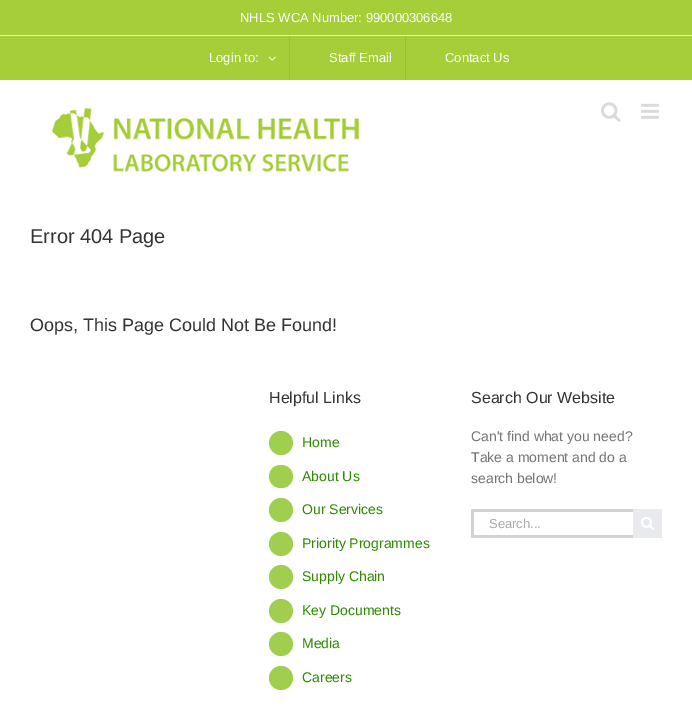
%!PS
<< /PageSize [692 717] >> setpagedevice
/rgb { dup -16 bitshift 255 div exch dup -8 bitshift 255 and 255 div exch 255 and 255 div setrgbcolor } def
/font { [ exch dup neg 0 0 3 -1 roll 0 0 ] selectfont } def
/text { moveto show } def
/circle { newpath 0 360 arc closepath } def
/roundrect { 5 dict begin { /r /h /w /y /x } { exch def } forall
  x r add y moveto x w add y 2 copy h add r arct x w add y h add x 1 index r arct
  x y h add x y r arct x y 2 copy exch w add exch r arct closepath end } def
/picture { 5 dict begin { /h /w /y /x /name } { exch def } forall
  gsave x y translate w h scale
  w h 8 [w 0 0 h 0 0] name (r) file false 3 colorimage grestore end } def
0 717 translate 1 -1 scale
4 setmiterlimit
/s1 { /LiberationSans-Regular 13 font 16#FFFFFF rgb } def
/s2 { /LiberationSans-Regular 20 font 16#333333 rgb } def
/s3 { /LiberationSans-Regular 18 font 16#333333 rgb } def
/s4 { /LiberationSans-Regular 16 font 16#333333 rgb } def
/s5 { /LiberationSans-Regular 14 font 16#2D8900 rgb } def
/s6 { /LiberationSans-Regular 14 font 16#747474 rgb } def
/s7 { /LiberationSans-Regular 13 font 16#AAA9A9 rgb } def
16#FFFFFF rgb
0 0 692 717 rectfill
16#A6CE39 rgb
0 0 692 80 rectfill
16#FFFFFF rgb
0 35 692 1 rectfill
s1
(NHLS WCA Number: 990000306648) 240 22 text
(Login to:) 209 62 text
(pic1.raw) 268 56 8 5 picture
16#8BC34A rgb
289 36 1 44 rectfill
s1
(Staff Email) 329 62 text
16#8BC34A rgb
405 36 1 44 rectfill
s1
(Contact Us) 445 62 text
(pic2.raw) 52 108 307 64 picture
(pic3.raw) 601 102 20 20 picture
(pic4.raw) 641 103 18 16 picture
s2
(Error 404 Page) 30 243 text
s3
(Oops, This Page Could Not Be Found!) 30 331 text
s4
(Helpful Links) 269 403 text
16#A0CE4E rgb
281 443 12 circle fill
s5
(Home) 302 447 text
16#A0CE4E rgb
269 465 24 23 11.5 roundrect fill
s5
(About Us) 302 481 text
16#A0CE4E rgb
281 510 12 circle fill
s5
(Our Services) 302 514 text
16#A0CE4E rgb
281 544 12 circle fill
s5
(Priority Programmes) 302 548 text
16#A0CE4E rgb
281 577 12 circle fill
s5
(Supply Chain) 302 581 text
16#A0CE4E rgb
281 611 12 circle fill
s5
(Key Documents) 302 615 text
16#A0CE4E rgb
281 644 12 circle fill
s5
(Media) 302 648 text
16#A0CE4E rgb
281 678 12 circle fill
s5
(Careers) 302 682 text
s4
(Search Our Website) 471 403 text
s6
(Can't find what you need?) 471 441 text
(Take a moment and do a) 471 462 text
(search below!) 471 483 text
16#D2D2D2 rgb
471 509 162 3 rectfill
471 535 162 3 rectfill
471 509 3 29 rectfill
s7
(Search...) 489 528 text
16#E9EAEE rgb
633 509 29 29 rectfill
(pic5.raw) 641 517 13 13 picture
showpage
